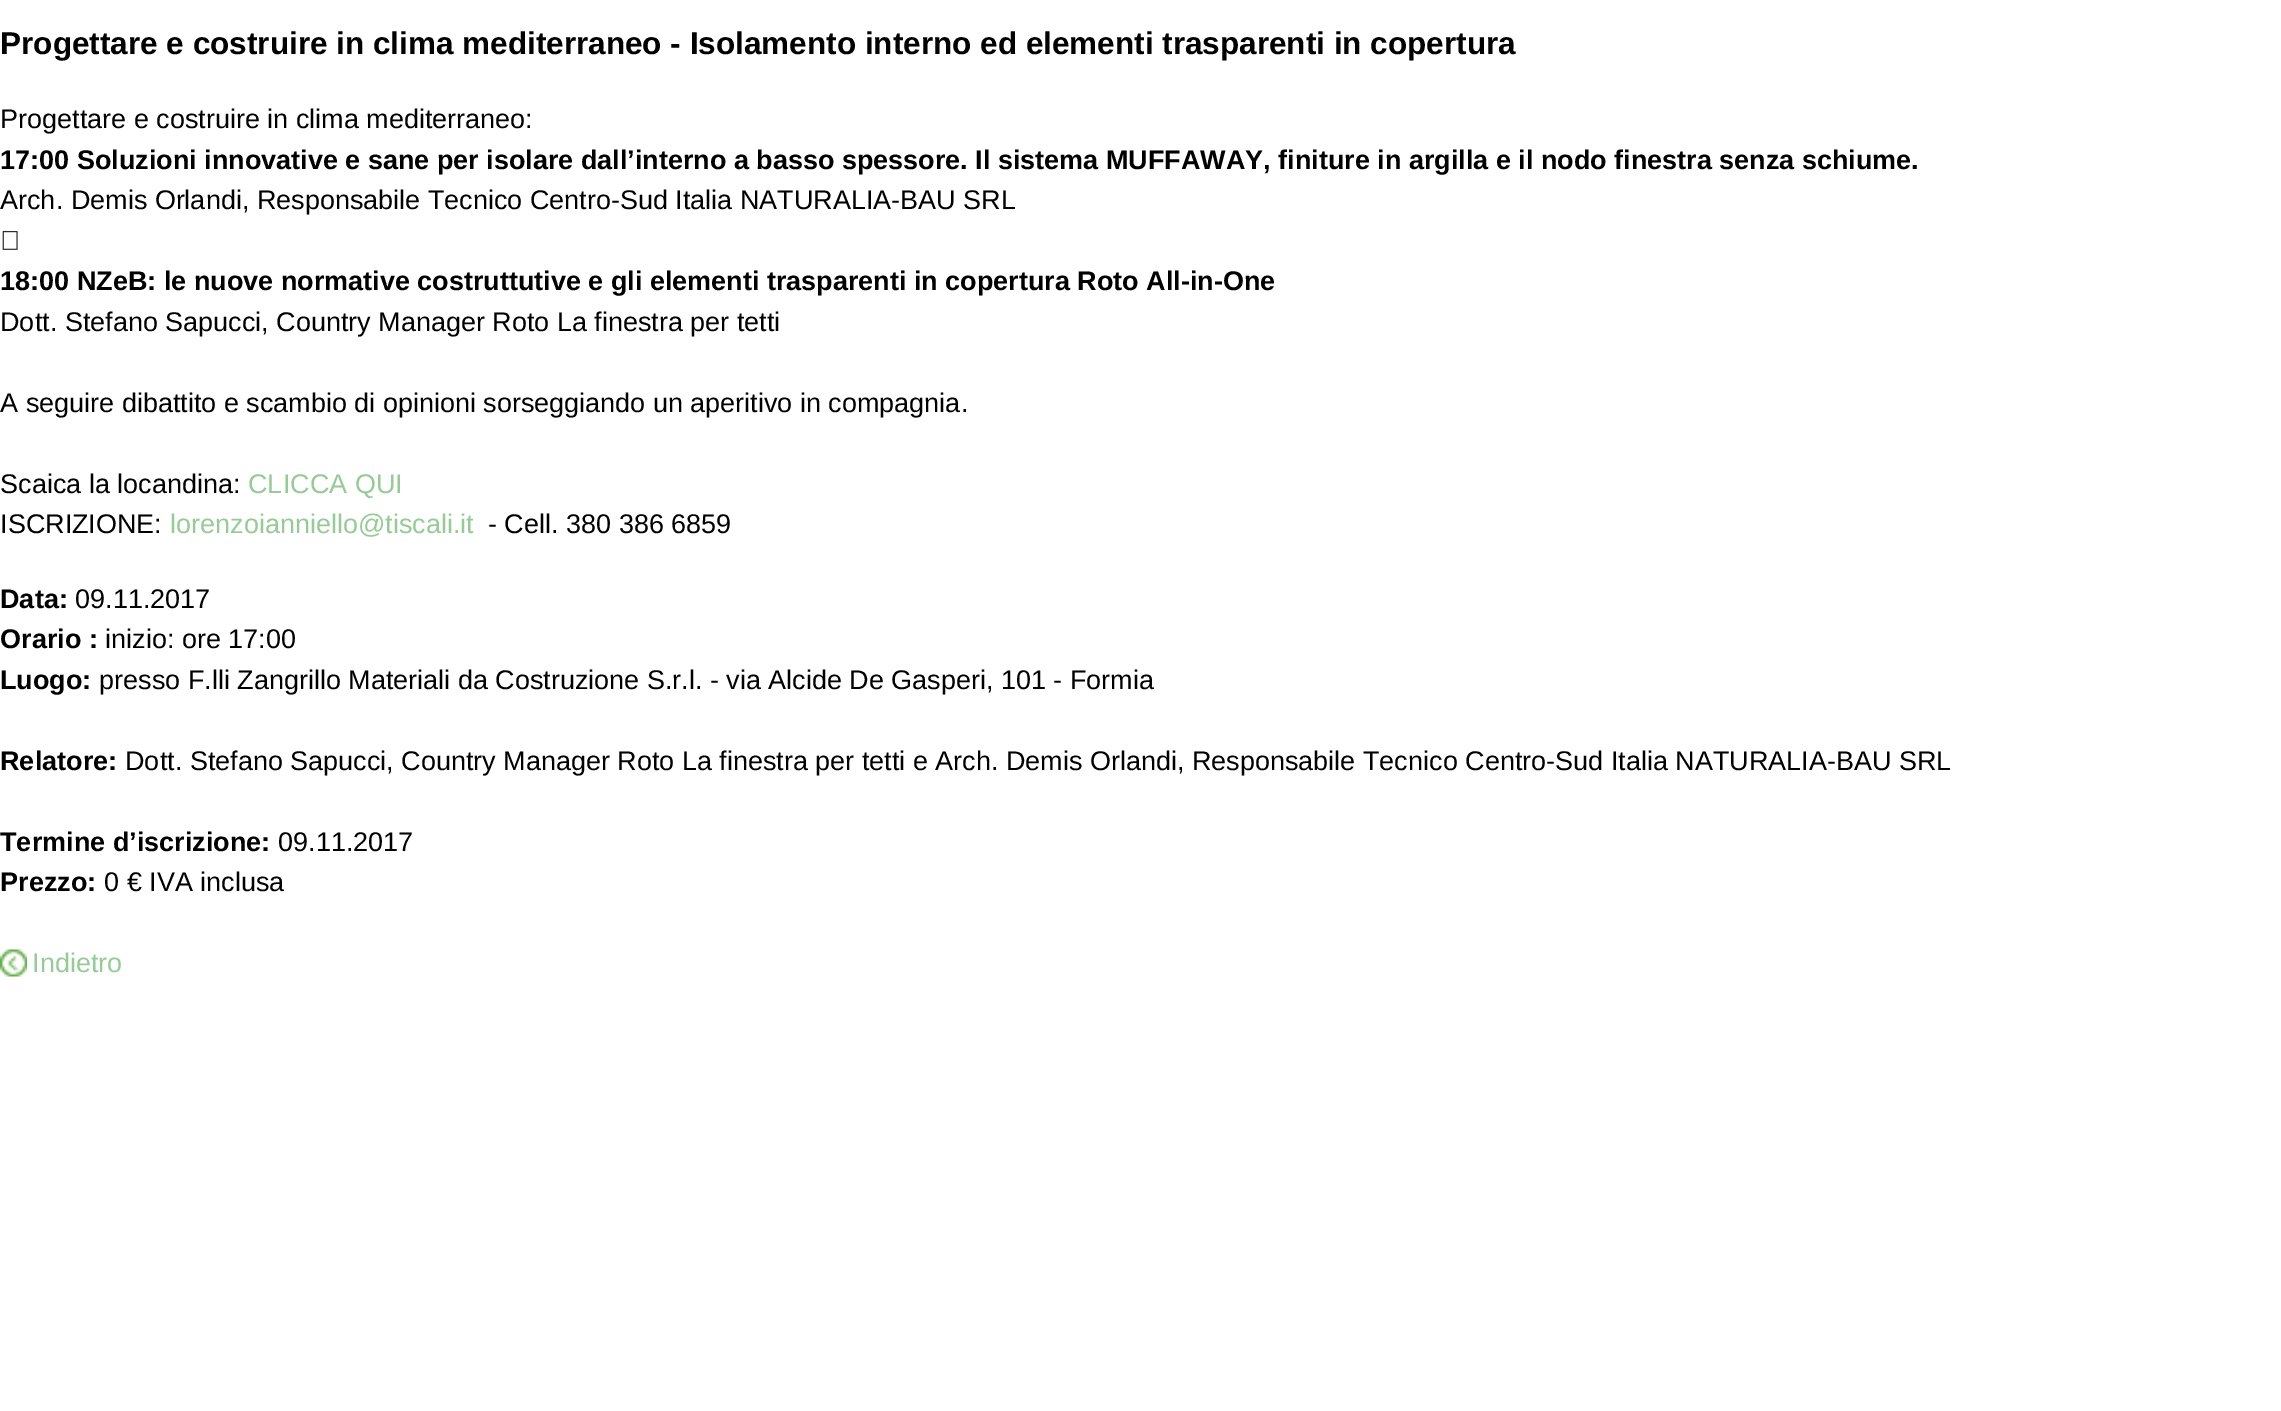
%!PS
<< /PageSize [2281 1411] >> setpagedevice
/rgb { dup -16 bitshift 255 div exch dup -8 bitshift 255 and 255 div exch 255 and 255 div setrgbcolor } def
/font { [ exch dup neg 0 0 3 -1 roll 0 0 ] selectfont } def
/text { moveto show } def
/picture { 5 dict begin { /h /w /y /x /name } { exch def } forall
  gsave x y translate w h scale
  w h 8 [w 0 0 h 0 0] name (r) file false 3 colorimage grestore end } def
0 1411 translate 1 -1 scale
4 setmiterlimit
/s1 { /LiberationSans-Bold 31.5 font 16#000000 rgb } def
/s2 { /LiberationSans-Regular 27 font 16#000000 rgb } def
/s3 { /LiberationSans-Bold 27 font 16#000000 rgb } def
/s4 { /LiberationSans-Regular 27 font 16#96CB98 rgb } def
16#FFFFFF rgb
0 0 2281 1411 rectfill
s1
(Progettare e costruire in clima mediterraneo - Isolamento interno ed elementi trasparenti in copertura) 0 54 text
s2
(Progettare e costruire in clima mediterraneo:) 0 128 text
s3
(17:00 Soluzioni innovative e sane per isolare dall’interno a basso spessore. Il sistema MUFFAWAY, finiture in argilla e il nodo finestra senza schiume.) 0 169 text
s2
(Arch. Demis Orlandi, Responsabile Tecnico Centro-Sud Italia NATURALIA-BAU SRL) 0 209 text
(pic1.raw) 2 231 16 19 picture
s3
(18:00 NZeB: le nuove normative costruttutive e gli elementi trasparenti in copertura Roto All-in-One) 0 290 text
s2
(Dott. Stefano Sapucci, Country Manager Roto La finestra per tetti) 0 331 text
(A seguire dibattito e scambio di opinioni sorseggiando un aperitivo in compagnia.) 0 412 text
(Scaica la locandina:) 0 493 text
s4
(CLICCA QUI) 248 493 text
s2
(ISCRIZIONE:) 0 533 text
s4
(lorenzoianniello@tiscali.it) 170 533 text
s2
(- Cell. 380 386 6859) 488 533 text
s3
(Data:) 0 608 text
s2
(09.11.2017) 75 608 text
s3
(Orario :) 0 648 text
s2
(inizio: ore 17:00) 105 648 text
s3
(Luogo:) 0 689 text
s2
(presso F.lli Zangrillo Materiali da Costruzione S.r.l. - via Alcide De Gasperi, 101 - Formia) 99 689 text
s3
(Relatore:) 0 770 text
s2
(Dott. Stefano Sapucci, Country Manager Roto La finestra per tetti e Arch. Demis Orlandi, Responsabile Tecnico Centro-Sud Italia NATURALIA-BAU SRL) 125 770 text
s3
(Termine d’iscrizione:) 0 851 text
s2
(09.11.2017) 278 851 text
s3
(Prezzo:) 0 891 text
s2
(0 € IVA inclusa) 104 891 text
(pic2.raw) 0 949 27 28 picture
s4
(Indietro) 32 972 text
showpage
